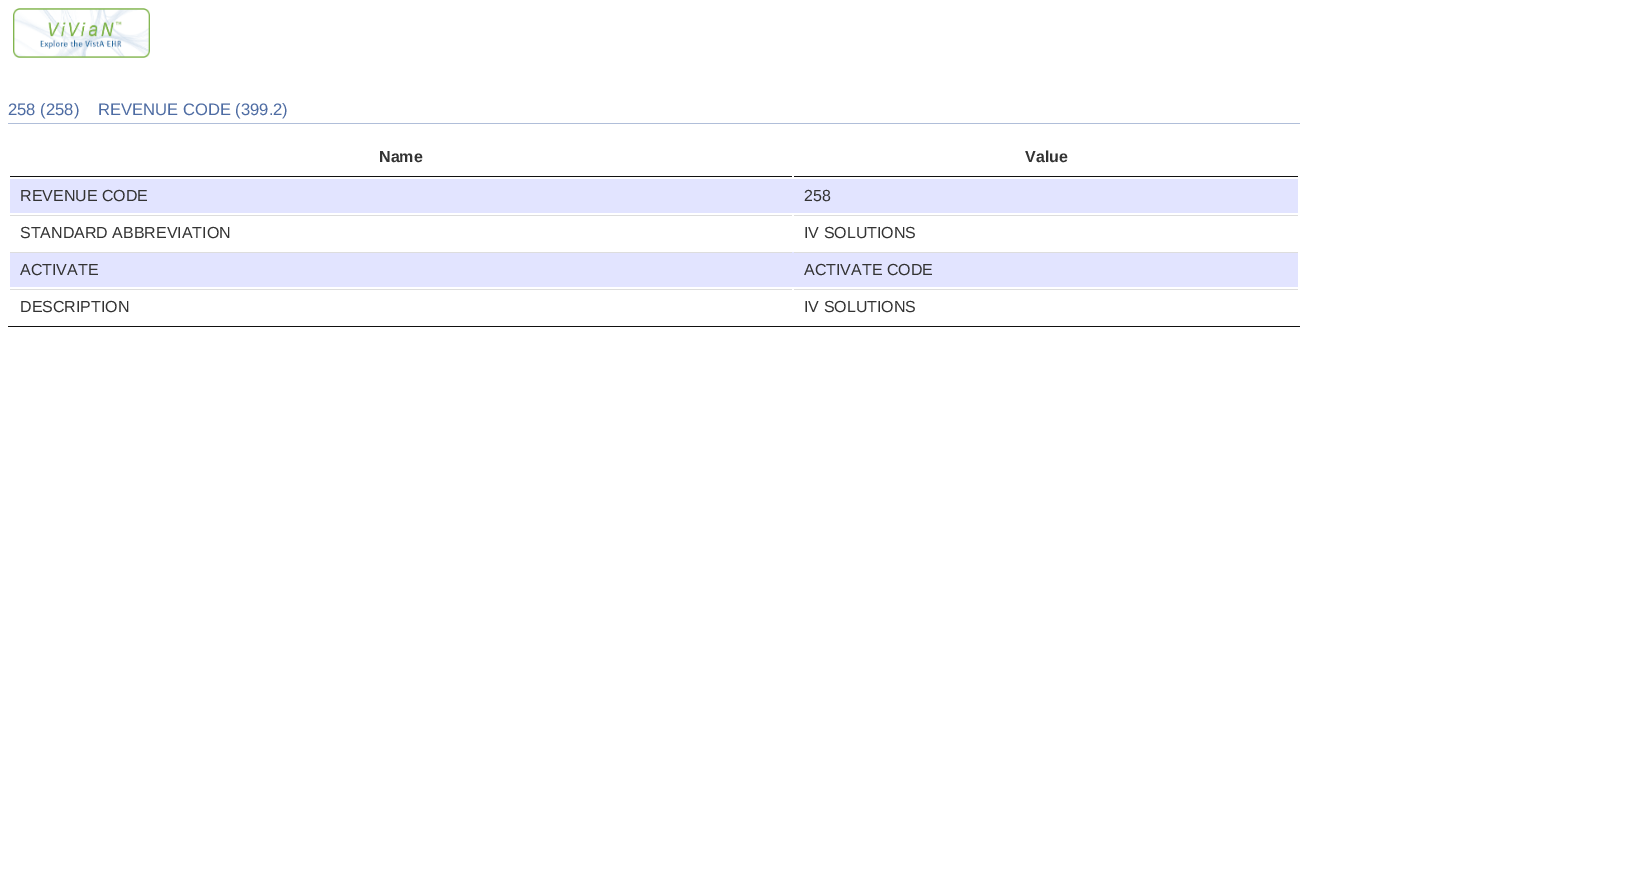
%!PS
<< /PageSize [1631 880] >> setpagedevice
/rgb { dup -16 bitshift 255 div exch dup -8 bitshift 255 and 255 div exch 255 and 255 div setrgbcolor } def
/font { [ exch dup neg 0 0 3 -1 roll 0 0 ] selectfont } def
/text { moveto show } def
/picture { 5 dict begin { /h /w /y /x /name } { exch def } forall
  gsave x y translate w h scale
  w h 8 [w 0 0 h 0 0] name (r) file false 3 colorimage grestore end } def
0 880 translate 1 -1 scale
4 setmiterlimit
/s1 { /LiberationSans-Regular 16.6 font 16#4E6CA3 rgb } def
/s2 { /LiberationSans-Bold 16 font 16#333333 rgb } def
/s3 { /LiberationSans-Regular 16 font 16#333333 rgb } def
16#FFFFFF rgb
0 0 1631 880 rectfill
(pic1.raw) 13 8 137 50 picture
16#B0BED9 rgb
8 123 1292 1 rectfill
s1
(258 \(258\)) 8 115 text
(REVENUE CODE \(399.2\)) 98 115 text
16#111111 rgb
8 326 1292 1 rectfill
10 176 782 1 rectfill
s2
(Name) 379 162 text
16#111111 rgb
794 176 504 1 rectfill
s2
(Value) 1025 162 text
16#E2E4FF rgb
10 179 1288 34 rectfill
s3
(REVENUE CODE) 20 201 text
(258) 804 201 text
16#DDDDDD rgb
10 215 782 1 rectfill
s3
(STANDARD ABBREVIATION) 20 238 text
16#DDDDDD rgb
794 215 504 1 rectfill
s3
(IV SOLUTIONS) 804 238 text
16#E2E4FF rgb
10 252 1288 35 rectfill
16#DDDDDD rgb
10 252 782 1 rectfill
s3
(ACTIVATE) 20 275 text
16#DDDDDD rgb
794 252 504 1 rectfill
s3
(ACTIVATE CODE) 804 275 text
16#DDDDDD rgb
10 289 782 1 rectfill
s3
(DESCRIPTION) 20 312 text
16#DDDDDD rgb
794 289 504 1 rectfill
s3
(IV SOLUTIONS) 804 312 text
showpage
